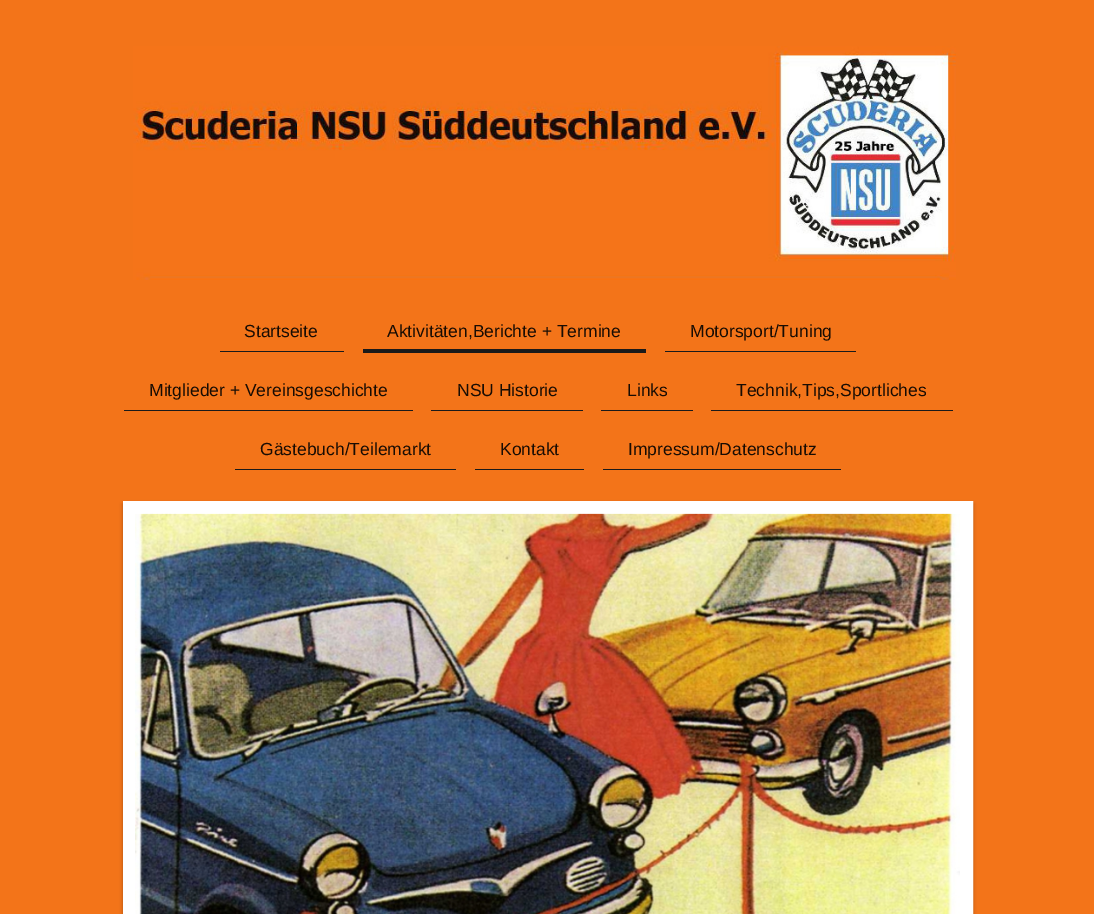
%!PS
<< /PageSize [1094 914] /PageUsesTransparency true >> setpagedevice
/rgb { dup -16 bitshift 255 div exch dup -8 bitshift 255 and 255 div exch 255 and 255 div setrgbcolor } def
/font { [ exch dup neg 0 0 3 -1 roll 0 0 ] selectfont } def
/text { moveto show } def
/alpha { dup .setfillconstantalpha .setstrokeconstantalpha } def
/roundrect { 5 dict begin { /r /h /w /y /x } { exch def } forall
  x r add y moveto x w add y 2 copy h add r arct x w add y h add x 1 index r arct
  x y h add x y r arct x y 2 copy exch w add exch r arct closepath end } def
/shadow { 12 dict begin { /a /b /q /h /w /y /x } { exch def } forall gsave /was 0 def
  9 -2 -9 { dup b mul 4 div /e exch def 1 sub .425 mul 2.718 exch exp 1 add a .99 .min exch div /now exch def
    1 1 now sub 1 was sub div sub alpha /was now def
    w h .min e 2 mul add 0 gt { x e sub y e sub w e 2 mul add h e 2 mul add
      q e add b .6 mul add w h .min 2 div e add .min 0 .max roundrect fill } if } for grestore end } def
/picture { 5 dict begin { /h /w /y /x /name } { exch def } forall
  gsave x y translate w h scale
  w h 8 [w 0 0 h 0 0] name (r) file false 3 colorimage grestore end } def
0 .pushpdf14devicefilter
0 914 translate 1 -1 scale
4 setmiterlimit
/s1 { /LiberationSans-Regular 17.5 font 16#180C03 rgb } def
16#F37419 rgb
0 0 1094 914 rectfill
(pic1.raw) 133 46 823 234 picture
s1
(Startseite) 244 337 text
16#1A1A1A rgb
220 351 124 1 rectfill
s1
(Aktivitäten,Berichte + Termine) 387 337 text
16#1A1A1A rgb
363 349 283 4 rectfill
s1
(Motorsport/Tuning) 690 337 text
16#1A1A1A rgb
665 351 191 1 rectfill
s1
(Mitglieder + Vereinsgeschichte) 149 396 text
16#1A1A1A rgb
124 410 289 1 rectfill
s1
(NSU Historie) 457 396 text
16#1A1A1A rgb
431 410 152 1 rectfill
s1
(Links) 627 396 text
16#1A1A1A rgb
601 410 92 1 rectfill
s1
(Technik,Tips,Sportliches) 736 396 text
16#1A1A1A rgb
711 410 242 1 rectfill
s1
(Gästebuch/Teilemarkt) 260 455 text
16#1A1A1A rgb
235 469 221 1 rectfill
s1
(Kontakt) 500 455 text
16#1A1A1A rgb
475 469 109 1 rectfill
s1
(Impressum/Datenschutz) 628 455 text
16#1A1A1A rgb
603 469 238 1 rectfill
16#000000 rgb
123 504 850 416 0 2 0.3 shadow
16#FFFFFF rgb
13 setlinewidth
129.5 507.5 837 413 rectstroke
(pic2.raw) 135 513 825 1 picture
(pic3.raw) 135 513 825 401 picture
.poppdf14devicefilter showpage
